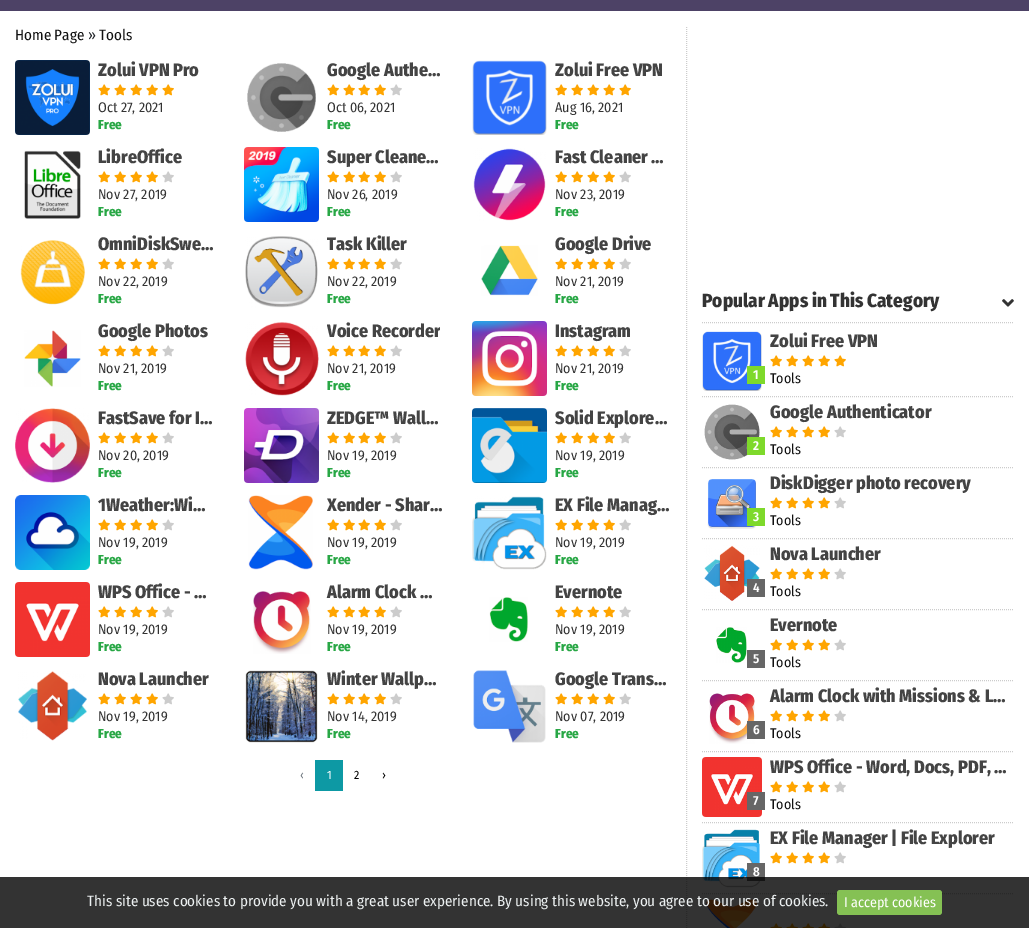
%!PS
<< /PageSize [1029 928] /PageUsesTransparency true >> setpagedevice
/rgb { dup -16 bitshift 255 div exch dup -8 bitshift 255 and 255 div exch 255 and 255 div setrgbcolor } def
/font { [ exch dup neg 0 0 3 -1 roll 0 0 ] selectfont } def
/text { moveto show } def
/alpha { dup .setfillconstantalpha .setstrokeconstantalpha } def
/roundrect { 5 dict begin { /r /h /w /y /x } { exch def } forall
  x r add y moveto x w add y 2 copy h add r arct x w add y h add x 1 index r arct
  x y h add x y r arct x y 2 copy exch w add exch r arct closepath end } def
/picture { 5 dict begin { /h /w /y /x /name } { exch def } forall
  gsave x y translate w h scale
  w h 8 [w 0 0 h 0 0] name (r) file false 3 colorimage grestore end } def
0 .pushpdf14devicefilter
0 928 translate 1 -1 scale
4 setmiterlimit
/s1 { /FiraSansCondensed-Regular 15 font 16#111111 rgb } def
/s2 { /FiraSansCondensed-Regular 15 font 16#212529 rgb } def
/s3 { /FiraSansCondensed-ExtraBold 18 font 16#444444 rgb } def
/s4 { /FiraSansCondensed-Regular 14 font 16#333333 rgb } def
/s5 { /FiraSansCondensed-ExtraBold 13 font 16#28A745 rgb } def
/s6 { /FiraSansCondensed-Regular 12 font 16#6C757D rgb } def
/s7 { /FiraSansCondensed-Regular 12 font 16#FFFFFF rgb } def
/s8 { /FiraSansCondensed-Regular 12 font 16#000000 rgb } def
/s9 { /FiraSansCondensed-ExtraBold 19 font 16#333333 rgb } def
/s10 { /FiraSansCondensed-Regular 14 font 16#111111 rgb } def
/s11 { /FiraSansCondensed-SemiBold 13 font 16#FFFFFF rgb } def
/s12 { /FiraSansCondensed-Regular 15 font 16#ECF0F1 rgb } def
/s13 { /FiraSansCondensed-Regular 14 font 16#FFFFFF rgb } def
16#FFFFFF rgb
0 0 1029 928 rectfill
16#4D4266 rgb
0 0 1029 11 rectfill
s1
(Home Page) 15 40 text
s2
(») 88 40 text
s1
(Tools) 99 40 text
(pic1.raw) 15 60 75 75 picture
s3
(Zolui VPN Pro) 98 76 text
(pic2.raw) 98 84 12 12 picture
(pic2.raw) 114 84 12 12 picture
(pic2.raw) 130 84 12 12 picture
(pic2.raw) 146 84 12 12 picture
(pic2.raw) 162 84 12 12 picture
s4
(Oct 27, 2021) 98 112 text
s5
(Free) 98 129 text
(pic3.raw) 247 63 69 69 picture
s3
(Google Authe…) 327 76 text
(pic2.raw) 327 84 12 12 picture
(pic2.raw) 343 84 12 12 picture
(pic2.raw) 358 84 12 12 picture
(pic2.raw) 374 84 12 12 picture
(pic4.raw) 390 84 12 12 picture
s4
(Oct 06, 2021) 327 112 text
s5
(Free) 327 129 text
(pic5.raw) 472 60 75 75 picture
s3
(Zolui Free VPN) 555 76 text
(pic2.raw) 555 84 12 12 picture
(pic2.raw) 571 84 12 12 picture
(pic2.raw) 587 84 12 12 picture
(pic2.raw) 603 84 12 12 picture
(pic2.raw) 619 84 12 12 picture
s4
(Aug 16, 2021) 555 112 text
s5
(Free) 555 129 text
(pic6.raw) 24 150 57 69 picture
s3
(LibreOffice) 98 163 text
(pic2.raw) 98 171 12 12 picture
(pic2.raw) 114 171 12 12 picture
(pic2.raw) 130 171 12 12 picture
(pic2.raw) 146 171 12 12 picture
(pic4.raw) 162 171 12 12 picture
s4
(Nov 27, 2019) 98 199 text
s5
(Free) 98 216 text
(pic7.raw) 244 147 75 75 picture
s3
(Super Cleane…) 327 163 text
(pic2.raw) 327 171 12 12 picture
(pic2.raw) 343 171 12 12 picture
(pic2.raw) 358 171 12 12 picture
(pic2.raw) 374 171 12 12 picture
(pic4.raw) 390 171 12 12 picture
s4
(Nov 26, 2019) 327 199 text
s5
(Free) 327 216 text
(pic8.raw) 473 148 73 73 picture
s3
(Fast Cleaner …) 555 163 text
(pic2.raw) 555 171 12 12 picture
(pic2.raw) 571 171 12 12 picture
(pic2.raw) 587 171 12 12 picture
(pic2.raw) 603 171 12 12 picture
(pic4.raw) 619 171 12 12 picture
s4
(Nov 23, 2019) 555 199 text
s5
(Free) 555 216 text
(pic9.raw) 20 240 65 65 picture
s3
(OmniDiskSwe…) 98 250 text
(pic2.raw) 98 258 12 12 picture
(pic2.raw) 114 258 12 12 picture
(pic2.raw) 130 258 12 12 picture
(pic2.raw) 146 258 12 12 picture
(pic4.raw) 162 258 12 12 picture
s4
(Nov 22, 2019) 98 286 text
s5
(Free) 98 303 text
(pic10.raw) 245 236 73 72 picture
gsave
327 234 80 20 rectclip
s3
(Task Killer) 327 250 text
grestore
(pic2.raw) 327 258 12 12 picture
(pic2.raw) 343 258 12 12 picture
(pic2.raw) 358 258 12 12 picture
(pic2.raw) 374 258 12 12 picture
(pic4.raw) 390 258 12 12 picture
s4
(Nov 22, 2019) 327 286 text
s5
(Free) 327 303 text
(pic11.raw) 481 245 57 51 picture
s3
(Google Drive) 555 250 text
(pic2.raw) 555 258 12 12 picture
(pic2.raw) 571 258 12 12 picture
(pic2.raw) 587 258 12 12 picture
(pic2.raw) 603 258 12 12 picture
(pic4.raw) 619 258 12 12 picture
s4
(Nov 21, 2019) 555 286 text
s5
(Free) 555 303 text
(pic12.raw) 24 330 57 57 picture
s3
(Google Photos) 98 337 text
(pic2.raw) 98 345 12 12 picture
(pic2.raw) 114 345 12 12 picture
(pic2.raw) 130 345 12 12 picture
(pic2.raw) 146 345 12 12 picture
(pic4.raw) 162 345 12 12 picture
s4
(Nov 21, 2019) 98 373 text
s5
(Free) 98 390 text
(pic13.raw) 245 322 74 74 picture
gsave
327 321 113 20 rectclip
s3
(Voice Recorder) 327 337 text
grestore
(pic2.raw) 327 345 12 12 picture
(pic2.raw) 343 345 12 12 picture
(pic2.raw) 358 345 12 12 picture
(pic2.raw) 374 345 12 12 picture
(pic4.raw) 390 345 12 12 picture
s4
(Nov 21, 2019) 327 373 text
s5
(Free) 327 390 text
(pic14.raw) 472 321 75 75 picture
s3
(Instagram) 555 337 text
(pic2.raw) 555 345 12 12 picture
(pic2.raw) 571 345 12 12 picture
(pic2.raw) 587 345 12 12 picture
(pic2.raw) 603 345 12 12 picture
(pic4.raw) 619 345 12 12 picture
s4
(Nov 21, 2019) 555 373 text
s5
(Free) 555 390 text
(pic15.raw) 15 408 75 75 picture
s3
(FastSave for I…) 98 424 text
(pic2.raw) 98 432 12 12 picture
(pic2.raw) 114 432 12 12 picture
(pic2.raw) 130 432 12 12 picture
(pic2.raw) 146 432 12 12 picture
(pic4.raw) 162 432 12 12 picture
s4
(Nov 20, 2019) 98 460 text
s5
(Free) 98 477 text
(pic16.raw) 244 408 75 75 picture
gsave
327 408 115 20 rectclip
s3
(ZEDGE™ Wall…) 327 424 text
grestore
(pic2.raw) 327 432 12 12 picture
(pic2.raw) 343 432 12 12 picture
(pic2.raw) 358 432 12 12 picture
(pic2.raw) 374 432 12 12 picture
(pic4.raw) 390 432 12 12 picture
s4
(Nov 19, 2019) 327 460 text
s5
(Free) 327 477 text
(pic17.raw) 472 408 75 75 picture
s3
(Solid Explore…) 555 424 text
(pic2.raw) 555 432 12 12 picture
(pic2.raw) 571 432 12 12 picture
(pic2.raw) 587 432 12 12 picture
(pic2.raw) 603 432 12 12 picture
(pic4.raw) 619 432 12 12 picture
s4
(Nov 19, 2019) 555 460 text
s5
(Free) 555 477 text
(pic18.raw) 15 495 75 75 picture
s3
(1Weather:Wi…) 98 511 text
(pic2.raw) 98 519 12 12 picture
(pic2.raw) 114 519 12 12 picture
(pic2.raw) 130 519 12 12 picture
(pic2.raw) 146 519 12 12 picture
(pic4.raw) 162 519 12 12 picture
s4
(Nov 19, 2019) 98 547 text
s5
(Free) 98 564 text
(pic19.raw) 248 495 65 75 picture
s3
(Xender - Shar…) 327 511 text
(pic2.raw) 327 519 12 12 picture
(pic2.raw) 343 519 12 12 picture
(pic2.raw) 358 519 12 12 picture
(pic2.raw) 374 519 12 12 picture
(pic4.raw) 390 519 12 12 picture
s4
(Nov 19, 2019) 327 547 text
s5
(Free) 327 564 text
(pic20.raw) 472 496 75 74 picture
s3
(EX File Manag…) 555 511 text
(pic2.raw) 555 519 12 12 picture
(pic2.raw) 571 519 12 12 picture
(pic2.raw) 587 519 12 12 picture
(pic2.raw) 603 519 12 12 picture
(pic4.raw) 619 519 12 12 picture
s4
(Nov 19, 2019) 555 547 text
s5
(Free) 555 564 text
(pic21.raw) 15 582 75 75 picture
s3
(WPS Office - …) 98 598 text
(pic2.raw) 98 606 12 12 picture
(pic2.raw) 114 606 12 12 picture
(pic2.raw) 130 606 12 12 picture
(pic2.raw) 146 606 12 12 picture
(pic4.raw) 162 606 12 12 picture
s4
(Nov 19, 2019) 98 634 text
s5
(Free) 98 651 text
(pic22.raw) 253 591 58 63 picture
s3
(Alarm Clock …) 327 598 text
(pic2.raw) 327 606 12 12 picture
(pic2.raw) 343 606 12 12 picture
(pic2.raw) 358 606 12 12 picture
(pic2.raw) 374 606 12 12 picture
(pic4.raw) 390 606 12 12 picture
s4
(Nov 19, 2019) 327 634 text
s5
(Free) 327 651 text
(pic23.raw) 489 597 39 45 picture
s3
(Evernote) 555 598 text
(pic2.raw) 555 606 12 12 picture
(pic2.raw) 571 606 12 12 picture
(pic2.raw) 587 606 12 12 picture
(pic2.raw) 603 606 12 12 picture
(pic4.raw) 619 606 12 12 picture
s4
(Nov 19, 2019) 555 634 text
s5
(Free) 555 651 text
(pic24.raw) 18 671 69 70 picture
s3
(Nova Launcher) 98 685 text
(pic2.raw) 98 693 12 12 picture
(pic2.raw) 114 693 12 12 picture
(pic2.raw) 130 693 12 12 picture
(pic2.raw) 146 693 12 12 picture
(pic4.raw) 162 693 12 12 picture
s4
(Nov 19, 2019) 98 721 text
s5
(Free) 98 738 text
(pic25.raw) 245 670 73 73 picture
s3
(Winter Wallp…) 327 685 text
(pic2.raw) 327 693 12 12 picture
(pic2.raw) 343 693 12 12 picture
(pic2.raw) 358 693 12 12 picture
(pic2.raw) 374 693 12 12 picture
(pic4.raw) 390 693 12 12 picture
s4
(Nov 14, 2019) 327 721 text
s5
(Free) 327 738 text
(pic26.raw) 473 670 73 73 picture
s3
(Google Trans…) 555 685 text
(pic2.raw) 555 693 12 12 picture
(pic2.raw) 571 693 12 12 picture
(pic2.raw) 587 693 12 12 picture
(pic2.raw) 603 693 12 12 picture
(pic4.raw) 619 693 12 12 picture
s4
(Nov 07, 2019) 555 721 text
s5
(Free) 555 738 text
s6
(‹) 300 779 text
16#0D99A4 rgb
315 760 28 31 rectfill
s7
(1) 327 779 text
s8
(2) 354 779 text
(›) 382 779 text
16#CCCCCC rgb
[1 1] 0 setdash
686.5 27 moveto 686.5 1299 lineto stroke
702 322.5 moveto 1014 322.5 lineto stroke
s9
(Popular Apps in This Category) 702 307 text
(pic27.raw) 1002 299 12 8 picture
16#CCCCCC rgb
702 396.5 moveto 1014 396.5 lineto stroke
(pic28.raw) 702 331 60 60 picture
s3
(Zolui Free VPN) 770 347 text
(pic2.raw) 770 355 12 12 picture
(pic2.raw) 786 355 12 12 picture
(pic2.raw) 802 355 12 12 picture
(pic2.raw) 818 355 12 12 picture
(pic2.raw) 834 355 12 12 picture
s10
(Tools) 770 383 text
16#7ED92B rgb
747 366 18 18 rectfill
s11
(1) 753 379 text
16#CCCCCC rgb
702 467.5 moveto 1014 467.5 lineto stroke
(pic29.raw) 704 404 56 56 picture
s3
(Google Authenticator) 770 418 text
(pic2.raw) 770 426 12 12 picture
(pic2.raw) 786 426 12 12 picture
(pic2.raw) 802 426 12 12 picture
(pic2.raw) 818 426 12 12 picture
(pic4.raw) 834 426 12 12 picture
s10
(Tools) 770 454 text
16#7ED92B rgb
747 437 18 18 rectfill
s11
(2) 753 450 text
16#CCCCCC rgb
702 538.5 moveto 1014 538.5 lineto stroke
(pic30.raw) 707 479 49 50 picture
s3
(DiskDigger photo recovery) 770 489 text
(pic2.raw) 770 497 12 12 picture
(pic2.raw) 786 497 12 12 picture
(pic2.raw) 802 497 12 12 picture
(pic2.raw) 818 497 12 12 picture
(pic4.raw) 834 497 12 12 picture
s10
(Tools) 770 525 text
16#7ED92B rgb
747 508 18 18 rectfill
s11
(3) 753 521 text
16#CCCCCC rgb
702 609.5 moveto 1014 609.5 lineto stroke
(pic31.raw) 704 545 56 56 picture
s3
(Nova Launcher) 770 560 text
(pic2.raw) 770 568 12 12 picture
(pic2.raw) 786 568 12 12 picture
(pic2.raw) 802 568 12 12 picture
(pic2.raw) 818 568 12 12 picture
(pic4.raw) 834 568 12 12 picture
s10
(Tools) 770 596 text
16#666666 rgb
747 579 18 18 rectfill
s11
(4) 753 592 text
16#CCCCCC rgb
702 680.5 moveto 1014 680.5 lineto stroke
(pic32.raw) 716 627 31 36 picture
16#666666 rgb
747 650 18 18 rectfill
s11
(5) 753 663 text
s3
(Evernote) 770 631 text
(pic2.raw) 770 639 12 12 picture
(pic2.raw) 786 639 12 12 picture
(pic2.raw) 802 639 12 12 picture
(pic2.raw) 818 639 12 12 picture
(pic4.raw) 834 639 12 12 picture
s10
(Tools) 770 667 text
16#CCCCCC rgb
702 751.5 moveto 1014 751.5 lineto stroke
(pic33.raw) 709 693 46 51 picture
16#666666 rgb
747 721 18 18 rectfill
s11
(6) 753 734 text
s3
(Alarm Clock with Missions & L…) 770 702 text
(pic2.raw) 770 710 12 12 picture
(pic2.raw) 786 710 12 12 picture
(pic2.raw) 802 710 12 12 picture
(pic2.raw) 818 710 12 12 picture
(pic4.raw) 834 710 12 12 picture
s10
(Tools) 770 738 text
16#CCCCCC rgb
702 822.5 moveto 1014 822.5 lineto stroke
(pic34.raw) 702 757 60 60 picture
s3
(WPS Office - Word, Docs, PDF, …) 770 773 text
(pic2.raw) 770 781 12 12 picture
(pic2.raw) 786 781 12 12 picture
(pic2.raw) 802 781 12 12 picture
(pic2.raw) 818 781 12 12 picture
(pic4.raw) 834 781 12 12 picture
s10
(Tools) 770 809 text
16#666666 rgb
747 792 18 18 rectfill
s11
(7) 753 805 text
16#CCCCCC rgb
702 893.5 moveto 1014 893.5 lineto stroke
(pic35.raw) 702 829 58 59 picture
s3
(EX File Manager | File Explorer) 770 844 text
(pic2.raw) 770 852 12 12 picture
(pic2.raw) 786 852 12 12 picture
(pic2.raw) 802 852 12 12 picture
(pic2.raw) 818 852 12 12 picture
(pic4.raw) 834 852 12 12 picture
16#666666 rgb
747 863 18 18 rectfill
s11
(8) 753 876 text
(pic36.raw) 705 899 53 29 picture
(pic37.raw) 770 923 12 5 picture
(pic37.raw) 786 923 12 5 picture
(pic37.raw) 802 923 12 5 picture
(pic37.raw) 818 923 12 5 picture
(pic38.raw) 834 923 12 5 picture
0.8 alpha
16#000000 rgb
0 877 1029 51 rectfill
1 alpha
s12
(This site uses cookies to provide you with a great user experience. By using this website, you agree to our use of cookies.) 87 906 text
16#85C154 rgb
837 890 105 25 3 roundrect fill
s13
(I accept cookies) 844 907 text
.poppdf14devicefilter showpage
